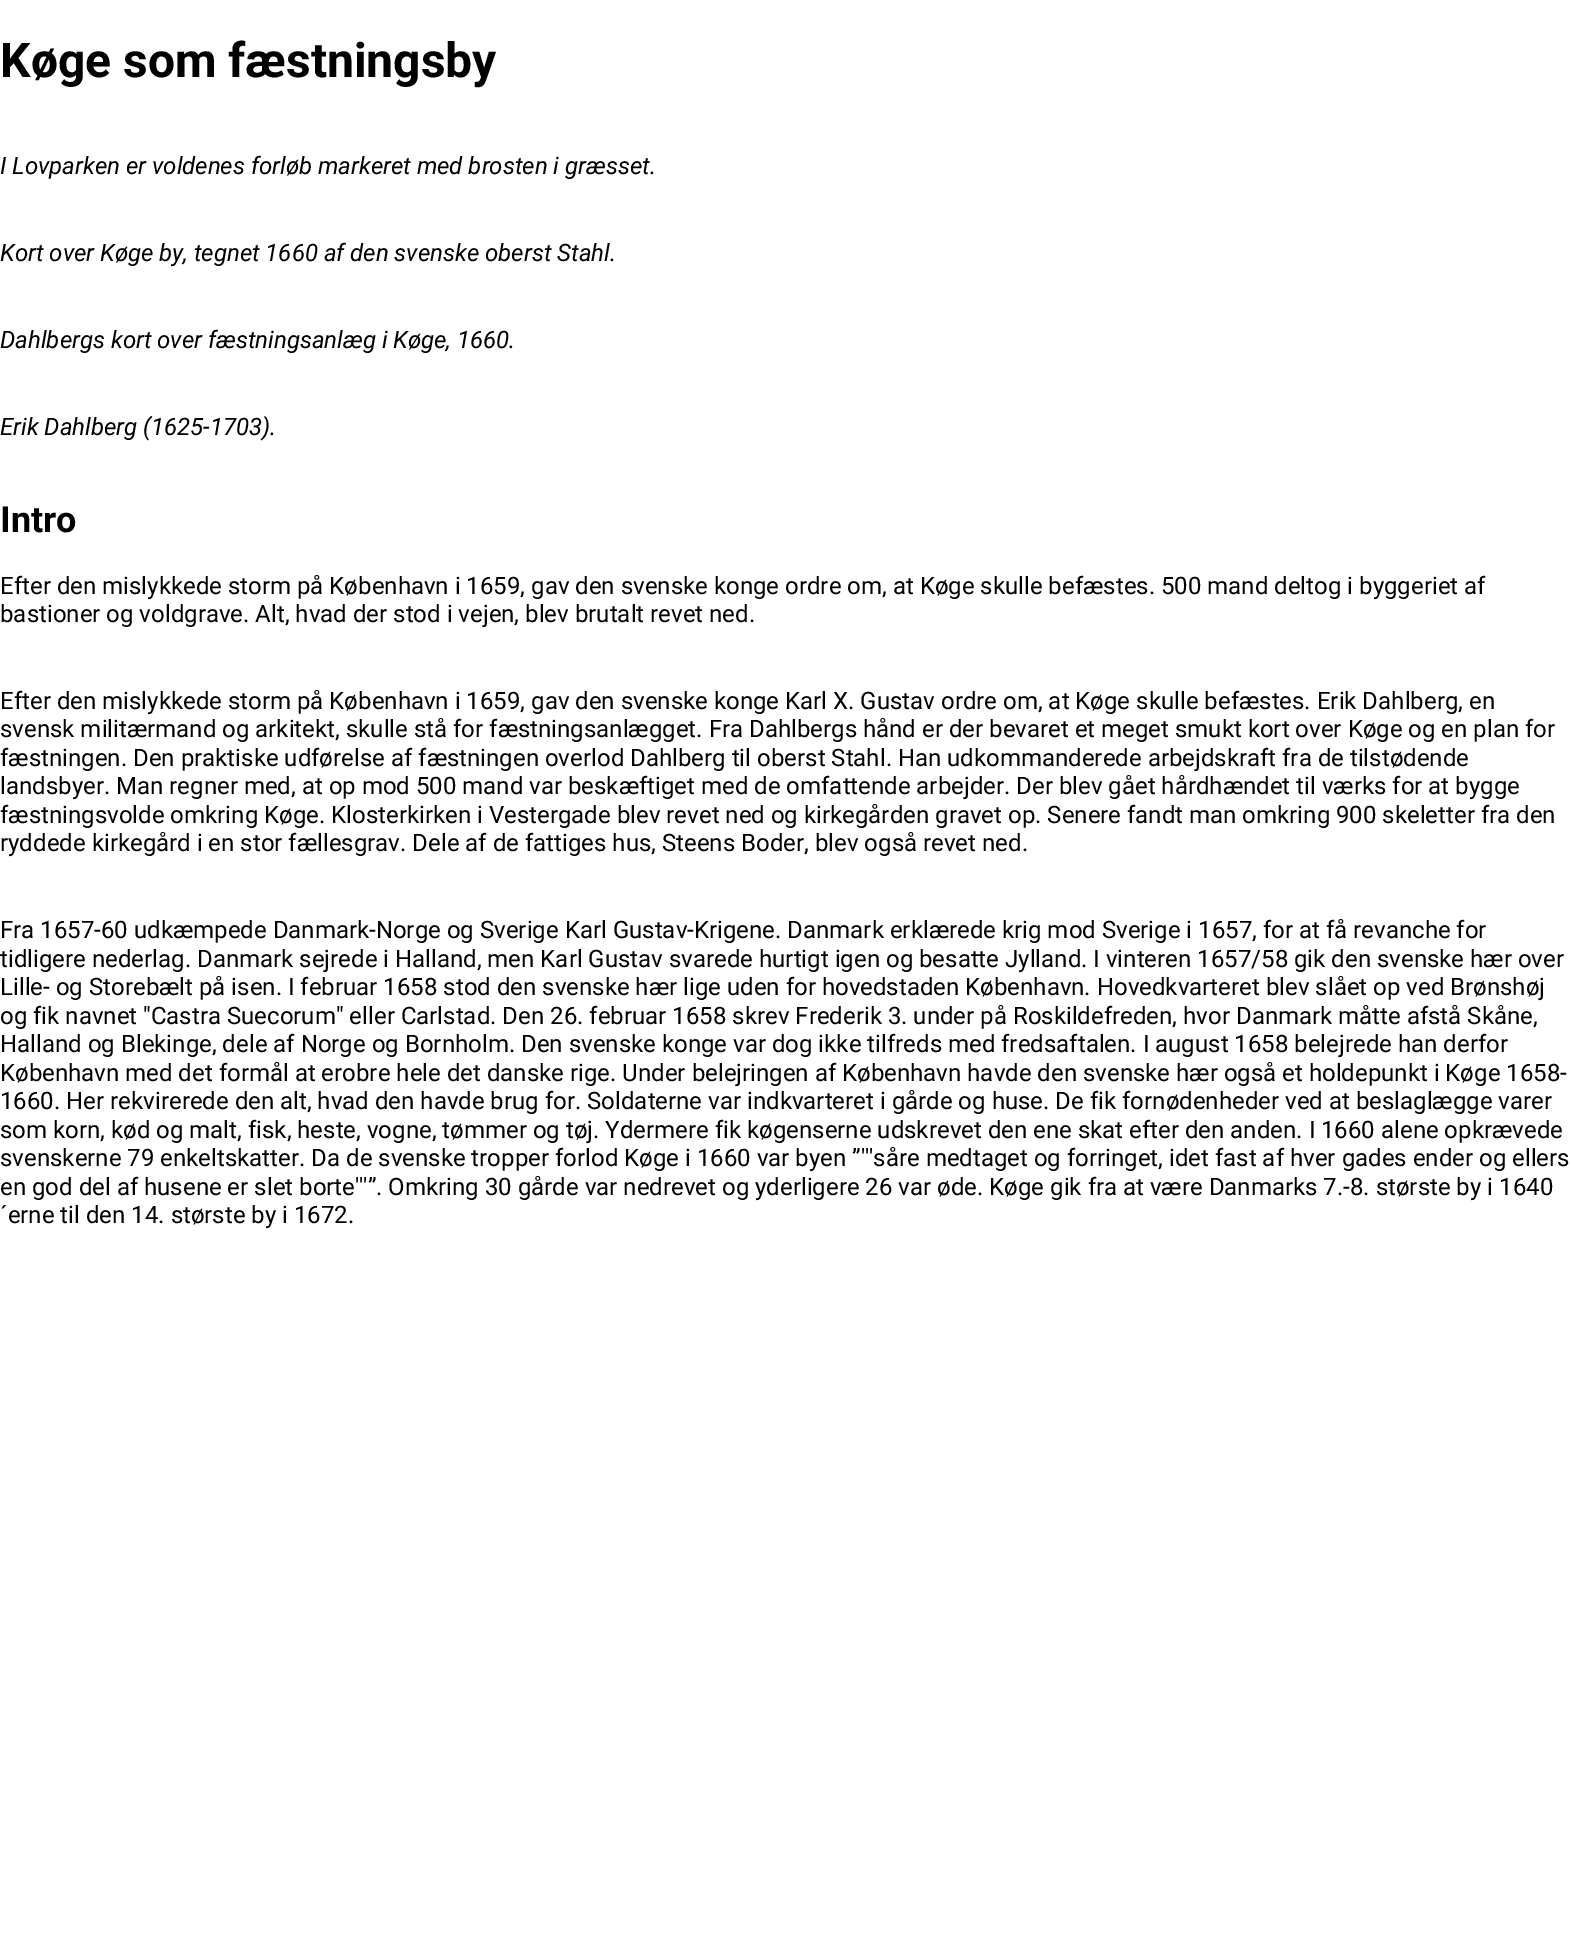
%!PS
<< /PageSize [1571 1950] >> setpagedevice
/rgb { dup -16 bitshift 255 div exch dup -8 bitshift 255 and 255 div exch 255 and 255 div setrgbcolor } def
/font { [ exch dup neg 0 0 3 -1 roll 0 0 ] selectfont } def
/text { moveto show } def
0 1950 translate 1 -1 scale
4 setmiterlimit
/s1 { /Roboto-Bold 48 font 16#000000 rgb } def
/s2 { /Roboto-Italic 24 font 16#000000 rgb } def
/s3 { /Roboto-Bold 36 font 16#000000 rgb } def
/s4 { /Roboto-Regular 24 font 16#000000 rgb } def
16#FFFFFF rgb
0 0 1571 1950 rectfill
s1
(Køge som fæstningsby) 0 77 text
s2
(I Lovparken er voldenes forløb markeret med brosten i græsset.) 0 174 text
(Kort over Køge by, tegnet 1660 af den svenske oberst Stahl.) 0 261 text
(Dahlbergs kort over fæstningsanlæg i Køge, 1660.) 0 348 text
(Erik Dahlberg \(1625-1703\).) 0 435 text
s3
(Intro) 0 532 text
s4
(Efter den mislykkede storm på København i 1659, gav den svenske konge ordre om, at Køge skulle befæstes. 500 mand deltog i byggeriet af) 0 594 text
(bastioner og voldgrave. Alt, hvad der stod i vejen, blev brutalt revet ned.) 0 622 text
(Efter den mislykkede storm på København i 1659, gav den svenske konge Karl X. Gustav ordre om, at Køge skulle befæstes. Erik Dahlberg, en) 0 709 text
(svensk militærmand og arkitekt, skulle stå for fæstningsanlægget. Fra Dahlbergs hånd er der bevaret et meget smukt kort over Køge og en plan for) 0 737 text
(fæstningen. Den praktiske udførelse af fæstningen overlod Dahlberg til oberst Stahl. Han udkommanderede arbejdskraft fra de tilstødende) 0 766 text
(landsbyer. Man regner med, at op mod 500 mand var beskæftiget med de omfattende arbejder. Der blev gået hårdhændet til værks for at bygge) 0 794 text
(fæstningsvolde omkring Køge. Klosterkirken i Vestergade blev revet ned og kirkegården gravet op. Senere fandt man omkring 900 skeletter fra den) 0 823 text
(ryddede kirkegård i en stor fællesgrav. Dele af de fattiges hus, Steens Boder, blev også revet ned.) 0 851 text
(Fra 1657-60 udkæmpede Danmark-Norge og Sverige Karl Gustav-Krigene. Danmark erklærede krig mod Sverige i 1657, for at få revanche for) 0 938 text
(tidligere nederlag. Danmark sejrede i Halland, men Karl Gustav svarede hurtigt igen og besatte Jylland. I vinteren 1657/58 gik den svenske hær over) 0 967 text
(Lille- og Storebælt på isen. I februar 1658 stod den svenske hær lige uden for hovedstaden København. Hovedkvarteret blev slået op ved Brønshøj) 0 995 text
(og fik navnet "Castra Suecorum" eller Carlstad. Den 26. februar 1658 skrev Frederik 3. under på Roskildefreden, hvor Danmark måtte afstå Skåne,) 0 1024 text
(Halland og Blekinge, dele af Norge og Bornholm. Den svenske konge var dog ikke tilfreds med fredsaftalen. I august 1658 belejrede han derfor) 0 1052 text
(København med det formål at erobre hele det danske rige. Under belejringen af København havde den svenske hær også et holdepunkt i Køge 1658-) 0 1081 text
(1660. Her rekvirerede den alt, hvad den havde brug for. Soldaterne var indkvarteret i gårde og huse. De fik fornødenheder ved at beslaglægge varer) 0 1109 text
(som korn, kød og malt, fisk, heste, vogne, tømmer og tøj. Ydermere fik køgenserne udskrevet den ene skat efter den anden. I 1660 alene opkrævede) 0 1138 text
(svenskerne 79 enkeltskatter. Da de svenske tropper forlod Køge i 1660 var byen ”'''såre medtaget og forringet, idet fast af hver gades ender og ellers) 0 1166 text
(en god del af husene er slet borte'''”. Omkring 30 gårde var nedrevet og yderligere 26 var øde. Køge gik fra at være Danmarks 7.-8. største by i 1640) 0 1195 text
(´erne til den 14. største by i 1672.) 0 1223 text
showpage
